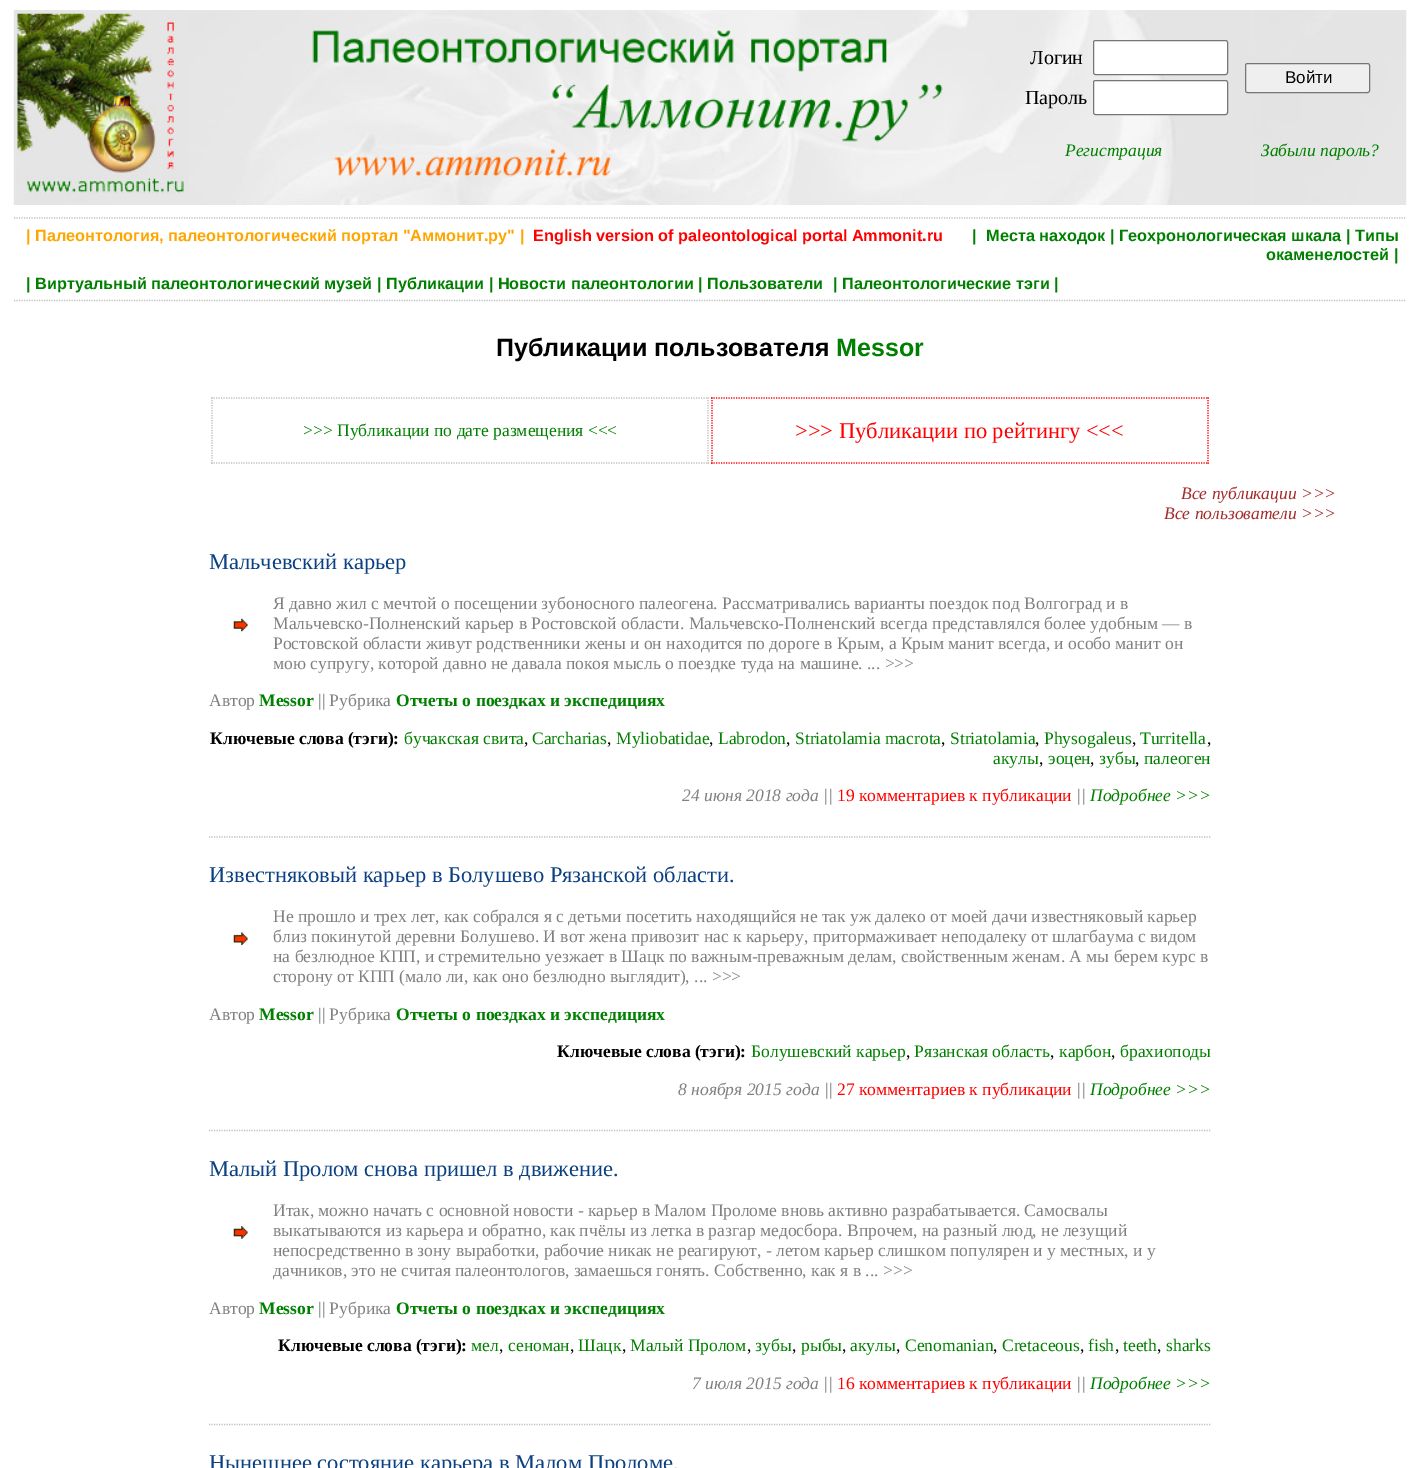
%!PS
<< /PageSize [1419 1468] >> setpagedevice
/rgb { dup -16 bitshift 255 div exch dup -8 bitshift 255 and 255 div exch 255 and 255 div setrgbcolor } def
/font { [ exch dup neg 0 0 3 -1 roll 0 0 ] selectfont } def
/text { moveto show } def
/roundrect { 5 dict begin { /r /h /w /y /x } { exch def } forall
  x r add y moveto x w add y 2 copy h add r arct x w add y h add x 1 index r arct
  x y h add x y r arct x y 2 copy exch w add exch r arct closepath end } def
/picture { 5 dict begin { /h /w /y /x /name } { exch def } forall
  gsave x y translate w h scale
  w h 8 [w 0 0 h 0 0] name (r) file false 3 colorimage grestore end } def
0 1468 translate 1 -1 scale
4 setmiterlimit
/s1 { /LiberationSerif-Regular 20 font 16#000000 rgb } def
/s2 { /LiberationSans-Regular 17 font 16#000000 rgb } def
/s3 { /LiberationSerif-Italic 17.5 font 16#008000 rgb } def
/s4 { /LiberationSans-Bold 16.25 font 16#FFA500 rgb } def
/s5 { /LiberationSans-Bold 16.25 font 16#FF0000 rgb } def
/s6 { /LiberationSans-Bold 16.25 font 16#008000 rgb } def
/s7 { /LiberationSans-Bold 25 font 16#000000 rgb } def
/s8 { /LiberationSans-Bold 25 font 16#008000 rgb } def
/s9 { /LiberationSerif-Regular 17.5 font 16#008000 rgb } def
/s10 { /LiberationSerif-Regular 22.5 font 16#FF0000 rgb } def
/s11 { /LiberationSerif-Italic 17.5 font 16#A52A2A rgb } def
/s12 { /LiberationSerif-Regular 22.5 font 16#0B4082 rgb } def
/s13 { /LiberationSerif-Regular 17.5 font 16#808080 rgb } def
/s14 { /LiberationSerif-Bold 17.5 font 16#008000 rgb } def
/s15 { /LiberationSerif-Bold 17.5 font 16#000000 rgb } def
/s16 { /LiberationSerif-Regular 17.5 font 16#000000 rgb } def
/s17 { /LiberationSerif-Italic 17.5 font 16#808080 rgb } def
/s18 { /LiberationSerif-Regular 17.5 font 16#FF0000 rgb } def
16#FFFFFF rgb
0 0 1419 1468 rectfill
(pic1.raw) 13 10 1394 195 picture
(pic2.raw) 17 13 171 181 picture
(pic3.raw) 312 30 631 147 picture
s1
(Логин) 1030 64 text
16#FFFFFF rgb
1093.5 40.5 134 34 2 roundrect gsave fill grestore
16#767676 rgb
stroke
s1
(Пароль) 1025 104 text
16#FFFFFF rgb
1093.5 80.5 134 34 2 roundrect gsave fill grestore
16#767676 rgb
stroke
16#EFEFEF rgb
1245.5 63.5 124 29 2 roundrect gsave fill grestore
16#767676 rgb
stroke
s2
(Войти) 1285 83 text
s3
(Регистрация) 1065 156 text
(Забыли пароль?) 1261 156 text
16#C0C0C0 rgb
1.2 setlinewidth
[1.25 1.25] 0 setdash
14 218 moveto 1406 218 lineto stroke
14 300.5 moveto 1406 300.5 lineto stroke
s4
(| Палеонтология, палеонтологический портал "Аммонит.ру" |) 26 241 text
s5
(English version of paleontological portal Ammonit.ru) 533 241 text
s6
(|) 972 241 text
(Места находок | Геохронологическая шкала | Типы) 986 241 text
(окаменелостей |) 1266 260 text
(| Виртуальный палеонтологический музей | Публикации | Новости палеонтологии | Пользователи) 26 289 text
(| Палеонтологические тэги |) 833 289 text
s7
(Публикации пользователя) 496 356 text
s8
(Messor) 836 356 text
16#C0C0C0 rgb
211 398 moveto 709 398 lineto stroke
708 397.5 moveto 708 464 lineto stroke
211 463 moveto 709 463 lineto stroke
212 397.5 moveto 212 464 lineto stroke
s9
(>>> Публикации по дате размещения <<<) 303 436 text
16#FF0000 rgb
711 398 moveto 1209 398 lineto stroke
1208 397.5 moveto 1208 464 lineto stroke
711 463 moveto 1209 463 lineto stroke
712 397.5 moveto 712 464 lineto stroke
s10
(>>> Публикации по рейтингу <<<) 795 438 text
s11
(Все публикации >>>) 1181 499 text
(Все пользователи >>>) 1164 519 text
16#C0C0C0 rgb
209 837 moveto 1211 837 lineto stroke
s12
(Мальчевский карьер) 209 569 text
(pic4.raw) 233 618 15 14 picture
s13
(Я давно жил с мечтой о посещении зубоносного палеогена. Рассматривались варианты поездок под Волгоград и в) 273 609 text
(Мальчевско-Полненский карьер в Ростовской области. Мальчевско-Полненский всегда представлялся более удобным — в) 273 629 text
(Ростовской области живут родственники жены и он находится по дороге в Крым, а Крым манит всегда, и особо манит он) 273 649 text
(мою супругу, которой давно не давала покоя мысль о поездке туда на машине. ... >>>) 273 669 text
(Автор) 209 706 text
s14
(Messor) 259 706 text
s13
(|| Рубрика) 318 706 text
s14
(Отчеты о поездках и экспедициях) 396 706 text
s15
(Ключевые слова \(тэги\):) 210 744 text
s9
(бучакская свита) 404 744 text
s16
(,) 524 744 text
s9
(Carcharias) 532 744 text
s16
(,) 607 744 text
s9
(Myliobatidae) 616 744 text
s16
(,) 709 744 text
s9
(Labrodon) 718 744 text
s16
(,) 786 744 text
s9
(Striatolamia macrota) 795 744 text
s16
(,) 941 744 text
s9
(Striatolamia) 950 744 text
s16
(,) 1035 744 text
s9
(Physogaleus) 1044 744 text
s16
(,) 1132 744 text
s9
(Turritella) 1140 744 text
s16
(,) 1207 744 text
s9
(акулы) 993 764 text
s16
(,) 1039 764 text
s9
(эоцен) 1048 764 text
s16
(,) 1090 764 text
s9
(зубы) 1099 764 text
s16
(,) 1135 764 text
s9
(палеоген) 1144 764 text
s17
(24 июня 2018 года ||) 682 801 text
s18
(19 комментариев к публикации) 837 801 text
s17
(||) 1076 801 text
s3
(Подробнее >>>) 1090 801 text
16#C0C0C0 rgb
209 1130.5 moveto 1211 1130.5 lineto stroke
s12
(Известняковый карьер в Болушево Рязанской области.) 209 882 text
(pic5.raw) 233 932 15 13 picture
s13
(Не прошло и трех лет, как собрался я с детьми посетить находящийся не так уж далеко от моей дачи известняковый карьер) 273 922 text
(близ покинутой деревни Болушево. И вот жена привозит нас к карьеру, притормаживает неподалеку от шлагбаума с видом) 273 942 text
(на безлюдное КПП, и стремительно уезжает в Шацк по важным-преважным делам, свойственным женам. А мы берем курс в) 273 962 text
(сторону от КПП \(мало ли, как оно безлюдно выглядит\), ... >>>) 273 982 text
(Автор) 209 1020 text
s14
(Messor) 259 1020 text
s13
(|| Рубрика) 318 1020 text
s14
(Отчеты о поездках и экспедициях) 396 1020 text
s15
(Ключевые слова \(тэги\):) 557 1057 text
s9
(Болушевский карьер) 751 1057 text
s16
(,) 906 1057 text
s9
(Рязанская область) 914 1057 text
s16
(,) 1050 1057 text
s9
(карбон) 1059 1057 text
s16
(,) 1111 1057 text
s9
(брахиоподы) 1120 1057 text
s17
(8 ноября 2015 года ||) 678 1095 text
s18
(27 комментариев к публикации) 837 1095 text
s17
(||) 1076 1095 text
s3
(Подробнее >>>) 1090 1095 text
16#C0C0C0 rgb
209 1424.5 moveto 1211 1424.5 lineto stroke
s12
(Малый Пролом снова пришел в движение.) 209 1176 text
(pic6.raw) 233 1226 15 13 picture
s13
(Итак, можно начать с основной новости - карьер в Малом Проломе вновь активно разрабатывается. Самосвалы) 273 1216 text
(выкатываются из карьера и обратно, как пчёлы из летка в разгар медосбора. Впрочем, на разный люд, не лезущий) 273 1236 text
(непосредственно в зону выработки, рабочие никак не реагируют, - летом карьер слишком популярен и у местных, и у) 273 1256 text
(дачников, это не считая палеонтологов, замаешься гонять. Собственно, как я в ... >>>) 273 1276 text
(Автор) 209 1314 text
s14
(Messor) 259 1314 text
s13
(|| Рубрика) 318 1314 text
s14
(Отчеты о поездках и экспедициях) 396 1314 text
s15
(Ключевые слова \(тэги\):) 278 1351 text
s9
(мел) 471 1351 text
s16
(,) 499 1351 text
s9
(сеноман) 508 1351 text
s16
(,) 570 1351 text
s9
(Шацк) 578 1351 text
s16
(,) 622 1351 text
s9
(Малый Пролом) 630 1351 text
s16
(,) 747 1351 text
s9
(зубы) 755 1351 text
s16
(,) 792 1351 text
s9
(рыбы) 801 1351 text
s16
(,) 842 1351 text
s9
(акулы) 850 1351 text
s16
(,) 896 1351 text
s9
(Cenomanian) 905 1351 text
s16
(,) 993 1351 text
s9
(Cretaceous) 1002 1351 text
s16
(,) 1080 1351 text
s9
(fish) 1088 1351 text
s16
(,) 1115 1351 text
s9
(teeth) 1123 1351 text
s16
(,) 1157 1351 text
s9
(sharks) 1166 1351 text
s17
(7 июля 2015 года ||) 692 1389 text
s18
(16 комментариев к публикации) 837 1389 text
s17
(||) 1076 1389 text
s3
(Подробнее >>>) 1090 1389 text
s12
(Нынешнее состояние карьера в Малом Проломе.) 209 1470 text
showpage
